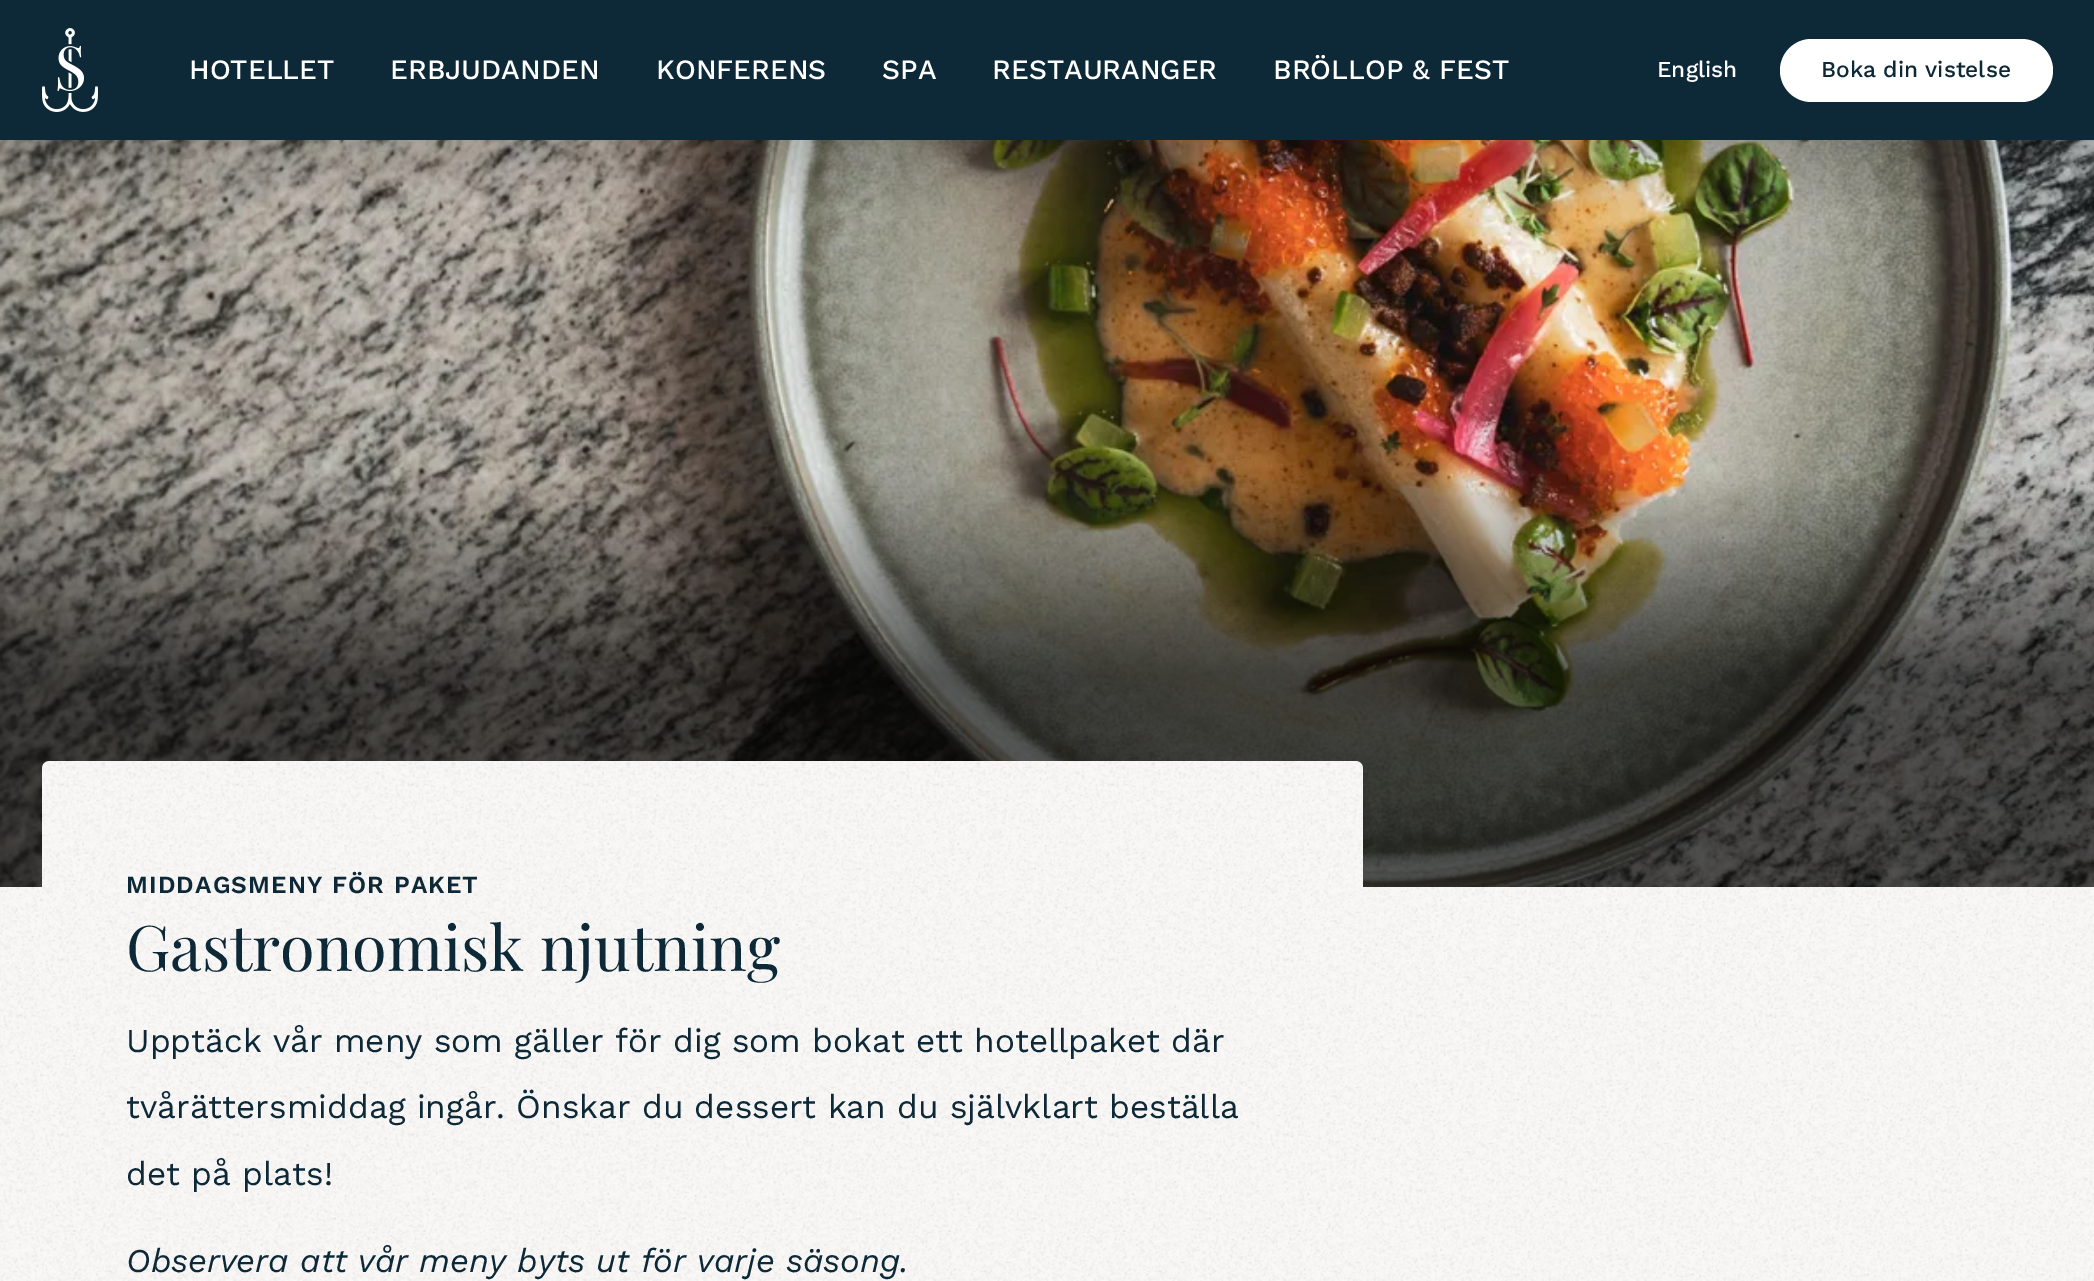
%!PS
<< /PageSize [2094 1281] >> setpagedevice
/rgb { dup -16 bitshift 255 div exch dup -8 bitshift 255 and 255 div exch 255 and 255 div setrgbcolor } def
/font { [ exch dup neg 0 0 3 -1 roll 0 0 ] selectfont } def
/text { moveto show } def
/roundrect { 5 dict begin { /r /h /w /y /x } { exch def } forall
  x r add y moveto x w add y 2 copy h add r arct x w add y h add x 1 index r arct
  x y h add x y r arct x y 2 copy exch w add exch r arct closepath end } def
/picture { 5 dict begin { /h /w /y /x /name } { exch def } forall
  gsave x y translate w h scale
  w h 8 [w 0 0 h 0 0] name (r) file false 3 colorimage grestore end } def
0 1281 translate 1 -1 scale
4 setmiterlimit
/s1 { /WorkSans-Medium 28 font 16#FFFFFF rgb } def
/s2 { /WorkSans-Medium 22.75 font 16#FFFFFF rgb } def
/s3 { /WorkSans-Medium 22.75 font 16#0D2938 rgb } def
/s4 { /PlayfairDisplay-Regular 63 font 16#0D2938 rgb } def
/s5 { /WorkSans-Regular 33.25 font 16#0D2938 rgb } def
/s6 { /WorkSans-Italic 33.25 font 16#0D2938 rgb } def
16#F9F8F7 rgb
0 0 2094 1281 rectfill
16#0D2938 rgb
0 0 2094 140 rectfill
(pic1.raw) 42 28 56 84 picture
s1
(HOTELLET) 189 79 text
(ERBJUDANDEN) 390 79 text
(KONFERENS) 656 79 text
(SPA) 882 79 text
(RESTAURANGER) 992 79 text
(BRÖLLOP & FEST) 1273 79 text
s2
(English) 1657 77 text
1780 39 273 63 31.5 roundrect fill
s3
(Boka din vistelse) 1821 77 text
(pic2.raw) 0 887 2094 394 picture
(pic3.raw) 0 140 2094 747 picture
16#F9F8F7 rgb
42 761 1321 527 7 roundrect fill
(pic4.raw) 42 761 1321 520 picture
/WorkSans-SemiBold 24.5 font
16#0D2938 rgb
126 893 moveto 1.1 0 (MIDDAGSMENY FÖR PAKET) ashow
s4
(Gastronomisk njutning) 126 971 text
s5
(Upptäck vår meny som gäller för dig som bokat ett hotellpaket där) 126 1052 text
(tvårättersmiddag ingår. Önskar du dessert kan du självklart beställa) 126 1118 text
(det på plats!) 126 1185 text
s6
(Observera att vår meny byts ut för varje säsong.) 126 1272 text
showpage
